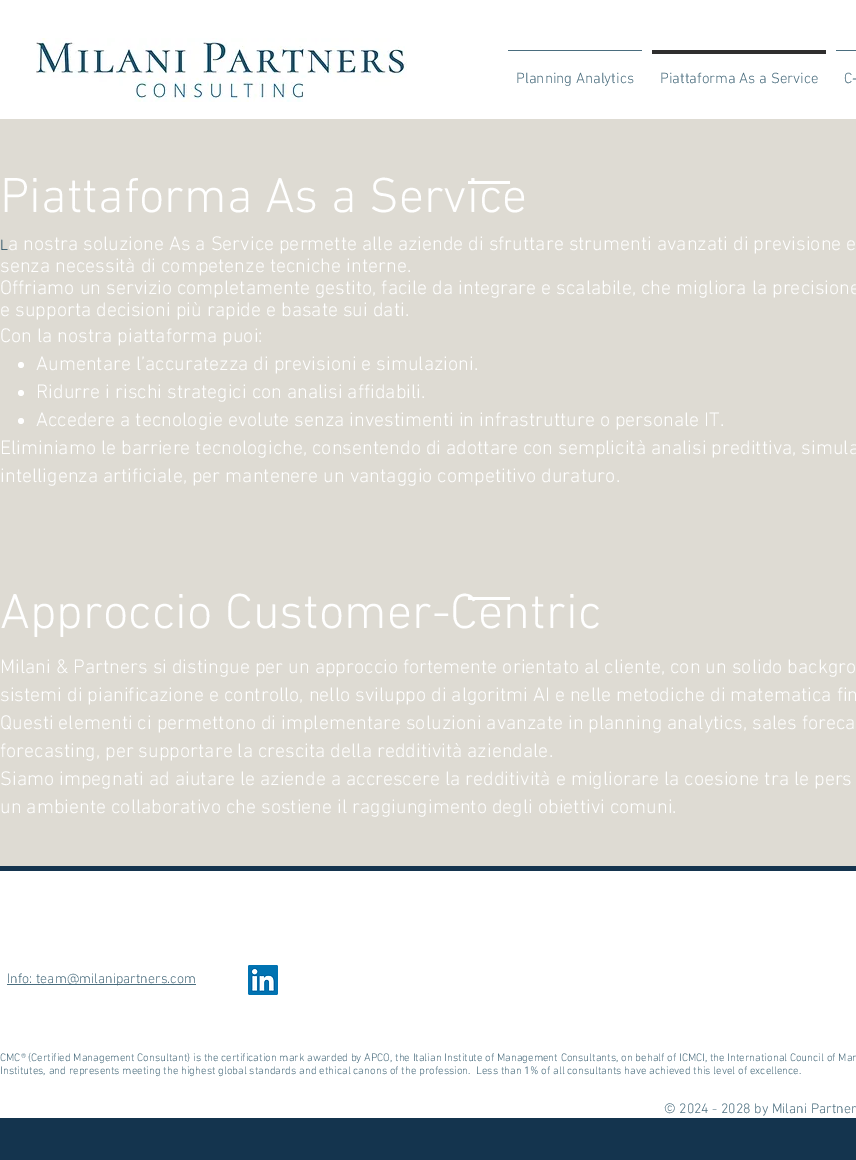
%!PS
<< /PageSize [856 1160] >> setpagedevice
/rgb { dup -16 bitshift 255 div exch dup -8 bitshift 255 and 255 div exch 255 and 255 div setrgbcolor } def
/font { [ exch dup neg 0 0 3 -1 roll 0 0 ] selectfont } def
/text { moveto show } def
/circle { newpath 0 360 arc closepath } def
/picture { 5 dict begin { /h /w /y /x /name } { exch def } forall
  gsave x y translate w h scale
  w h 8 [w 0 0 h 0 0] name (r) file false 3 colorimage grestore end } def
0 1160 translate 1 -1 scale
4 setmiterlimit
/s1 { /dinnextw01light-Light 15 font 16#4A6D7E rgb } def
/s2 { /dinnextw01light-Light 50 font 16#FFFFFF rgb } def
/s3 { /dinnextw01light-Light 15 font 16#0E3C53 rgb } def
/s4 { /dinnextw01light-Light 20 font 16#FFFFFF rgb } def
/s5 { /dinnextw01light-Light 14 font 16#4A6D7E rgb } def
/s6 { /dinnextw01light-Light 11 font 16#4A6D7E rgb } def
16#14344E rgb
0 0 856 1160 rectfill
16#FFFFFF rgb
0 0 856 119 rectfill
(pic1.raw) 36 38 371 64 picture
16#4A6D7E rgb
508 50 134 1 rectfill
s1
(Planning Analytics) 516 83 text
16#2F2E2E rgb
652 50 174 4 rectfill
s1
(Piattaforma As a Service) 660 83 text
836 50 20 1 rectfill
(C-) 844 83 text
16#DEDBD3 rgb
0 119 856 747 rectfill
16#FFFFFF rgb
468 181 42 3 rectfill
s2
(Piattaforma As a Service) 0 212 text
s3
(L) 0 250 text
s4
(a nostra soluzione As a Service permette alle aziende di sfruttare strumenti avanzati di previsione e) 8 250 text
(senza necessità di competenze tecniche interne.) 0 272 text
(Offriamo un servizio completamente gestito, facile da integrare e scalabile, che migliora la precisione) 0 294 text
(e supporta decisioni più rapide e basate sui dati.) 0 316 text
(Con la nostra piattaforma puoi:) 0 342 text
21 365 3 circle fill
(Aumentare l’accuratezza di previsioni e simulazioni.) 36 370 text
21 393 3 circle fill
(Ridurre i rischi strategici con analisi affidabili.) 36 398 text
21 421 3 circle fill
(Accedere a tecnologie evolute senza investimenti in infrastrutture o personale IT.) 36 426 text
(Eliminiamo le barriere tecnologiche, consentendo di adottare con semplicità analisi predittiva, simula) 0 454 text
(intelligenza artificiale, per mantenere un vantaggio competitivo duraturo.) 0 482 text
468 597 42 3 rectfill
s2
(Approccio Customer-Centric) 0 628 text
s4
(Milani & Partners si distingue per un approccio fortemente orientato al cliente, con un solido backgro) 0 673 text
(sistemi di pianificazione e controllo, nello sviluppo di algoritmi AI e nelle metodiche di matematica fin) 0 701 text
(Questi elementi ci permettono di implementare soluzioni avanzate in planning analytics, sales foreca) 0 729 text
(forecasting, per supportare la crescita della redditività aziendale.) 0 757 text
(Siamo impegnati ad aiutare le aziende a accrescere la redditività e migliorare la coesione tra le pers) 0 785 text
(un ambiente collaborativo che sostiene il raggiungimento degli obiettivi comuni.) 0 813 text
0 871 856 247 rectfill
16#4A6D7E rgb
7 984 189 1 rectfill
s5
(Info: team@milanipartners.com) 7 983 text
(pic2.raw) 248 965 30 30 picture
s6
(CMC® \(Certified Management Consultant\) is the certification mark awarded by APCO, the Italian Institute of Management Consultants, on behalf of ICMCI, the International Council of Man) 0 1061 text
(Institutes, and represents meeting the highest global standards and ethical canons of the profession.  Less than 1% of all consultants have achieved this level of excellence.) 0 1074 text
s5
(© 2024 - 2028 by Milani Partner) 664 1113 text
showpage
